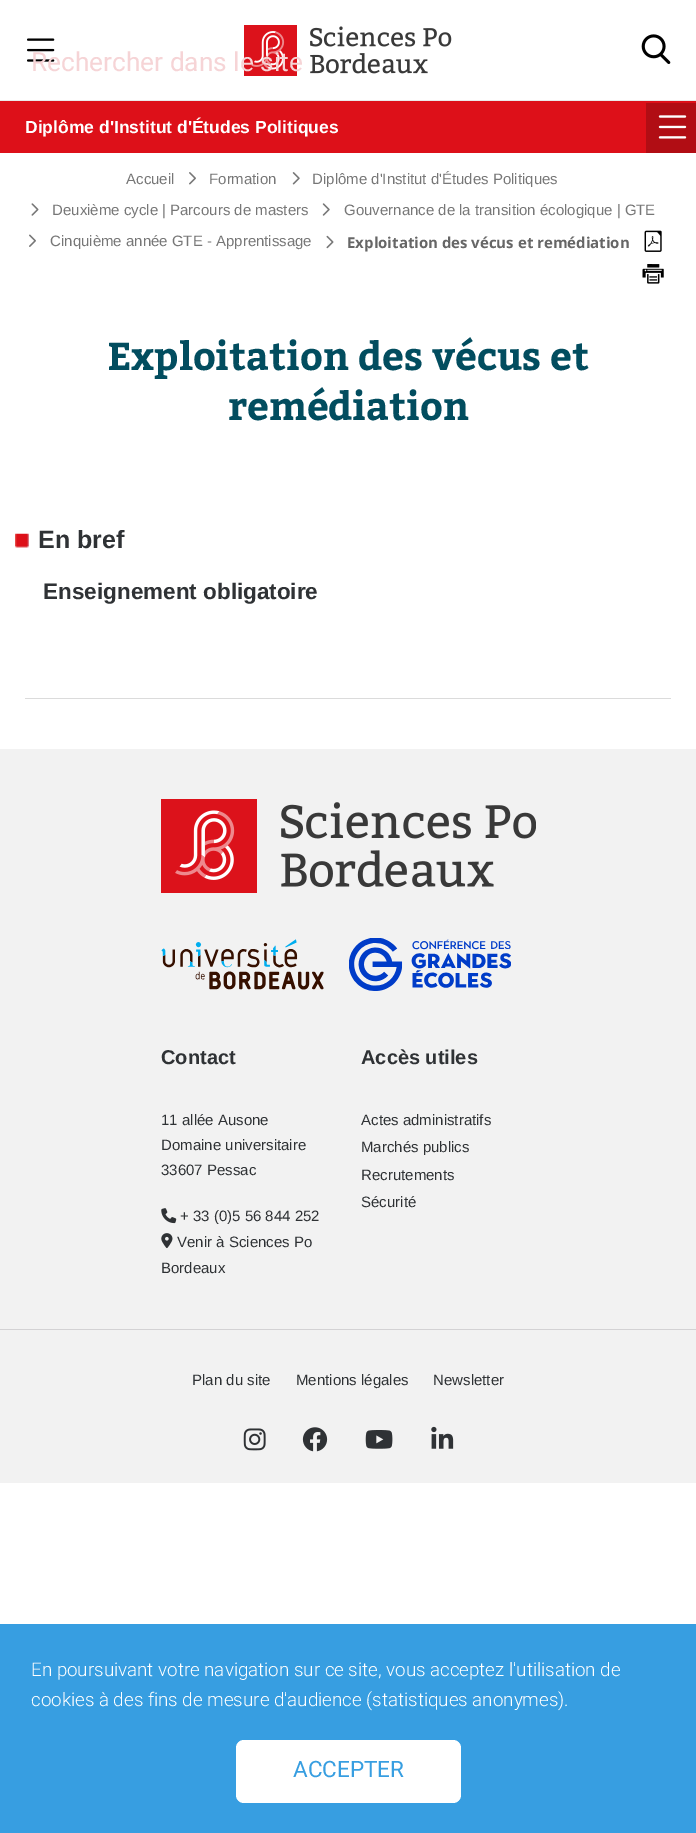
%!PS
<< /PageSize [696 1833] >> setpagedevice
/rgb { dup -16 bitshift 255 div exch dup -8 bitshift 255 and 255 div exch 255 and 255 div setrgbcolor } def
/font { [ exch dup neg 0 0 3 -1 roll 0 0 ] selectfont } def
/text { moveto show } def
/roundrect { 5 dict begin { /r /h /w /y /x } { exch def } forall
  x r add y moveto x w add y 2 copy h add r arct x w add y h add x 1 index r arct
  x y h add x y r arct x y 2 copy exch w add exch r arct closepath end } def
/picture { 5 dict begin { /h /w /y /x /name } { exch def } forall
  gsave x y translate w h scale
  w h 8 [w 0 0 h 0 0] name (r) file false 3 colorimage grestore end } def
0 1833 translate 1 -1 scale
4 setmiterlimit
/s1 { /Heebo-Regular 26.25 font 16#F6D4D6 rgb } def
/s2 { /LiberationSans-Bold 17.5 font 16#FFFFFF rgb } def
/s3 { /LiberationSans-Regular 15 font 16#777777 rgb } def
/s4 { /OpenSans-Bold 15 font 16#666666 rgb } def
/s5 { /Bitter-Bold 38.75 font 16#024D5F rgb } def
/s6 { /LiberationSans-Bold 25 font 16#2F3235 rgb } def
/s7 { /LiberationSans-Bold 22.5 font 16#2F3235 rgb } def
/s8 { /LiberationSans-Bold 20 font 16#2F3235 rgb } def
/s9 { /LiberationSans-Regular 15 font 16#2F3235 rgb } def
/s10 { /Heebo-Light 18.75 font 16#FFFFFF rgb } def
/s11 { /Heebo-Regular 22.5 font 16#379EE1 rgb } def
16#FFFFFF rgb
0 0 696 1833 rectfill
16#EAEAEA rgb
0 100 696 1 rectfill
(pic1.raw) 27 38 28 24 picture
(pic2.raw) 244 25 208 51 picture
s1
(Rechercher dans le site) 31 71 text
(pic3.raw) 641 34 30 30 picture
16#DD1019 rgb
0 101 696 52 rectfill
s2
(Diplôme d'Institut d'Études Politiques) 25 133 text
16#B10D14 rgb
646 103 50 50 rectfill
(pic4.raw) 658 115 29 24 picture
s3
(Accueil) 126 184 text
(pic5.raw) 189 172 7 13 picture
(Formation) 209 184 text
(pic6.raw) 292 172 8 13 picture
(Diplôme d'Institut d'Études Politiques) 312 184 text
(pic7.raw) 31 203 8 13 picture
(Deuxième cycle | Parcours de masters) 52 215 text
(pic8.raw) 322 203 8 13 picture
(Gouvernance de la transition écologique | GTE) 344 215 text
(pic9.raw) 29 234 7 13 picture
(Cinquième année GTE - Apprentissage) 50 246 text
(pic10.raw) 326 235 8 14 picture
s4
(Exploitation des vécus et remédiation) 347 248 text
(pic11.raw) 644 230 18 22 picture
(pic12.raw) 642 264 22 20 picture
s5
(Exploitation des vécus et) 107 370 text
(remédiation) 228 420 text
(pic13.raw) 15 533 14 15 picture
s6
(En bref) 38 548 text
s7
(Enseignement obligatoire) 43 599 text
16#DBDBDB rgb
25 698 646 1 rectfill
16#F2F2F2 rgb
0 749 696 734 rectfill
(pic14.raw) 161 799 375 94 picture
(pic15.raw) 161 939 163 51 picture
(pic16.raw) 349 938 162 53 picture
s8
(Contact) 161 1064 text
s9
(11 allée Ausone) 161 1125 text
(Domaine universitaire) 161 1150 text
(33607 Pessac) 161 1175 text
(pic17.raw) 161 1208 16 16 picture
(+ 33 \(0\)5 56 844 252) 180 1221 text
(pic18.raw) 161 1233 12 16 picture
(Venir à Sciences Po) 177 1247 text
(Bordeaux) 161 1273 text
s8
(Accès utiles) 361 1064 text
s9
(Actes administratifs) 361 1125 text
(Marchés publics) 361 1152 text
(Recrutements) 361 1180 text
(Sécurité) 361 1207 text
16#D3D2D4 rgb
0 1329 696 1 rectfill
s9
(Plan du site) 192 1385 text
(Mentions légales) 296 1385 text
(Newsletter) 433 1385 text
(pic19.raw) 243 1428 23 23 picture
(pic20.raw) 302 1427 26 25 picture
(pic21.raw) 365 1430 28 19 picture
(pic22.raw) 431 1426 23 23 picture
16#379EE1 rgb
0 1624 696 209 rectfill
s10
(En poursuivant votre navigation sur ce site, vous acceptez l'utilisation de) 31 1676 text
(cookies à des fins de mesure d'audience \(statistiques anonymes\).) 31 1706 text
236 1740 225 63 8 roundrect fill
s11
(ACCEPTER) 293 1777 text
showpage
